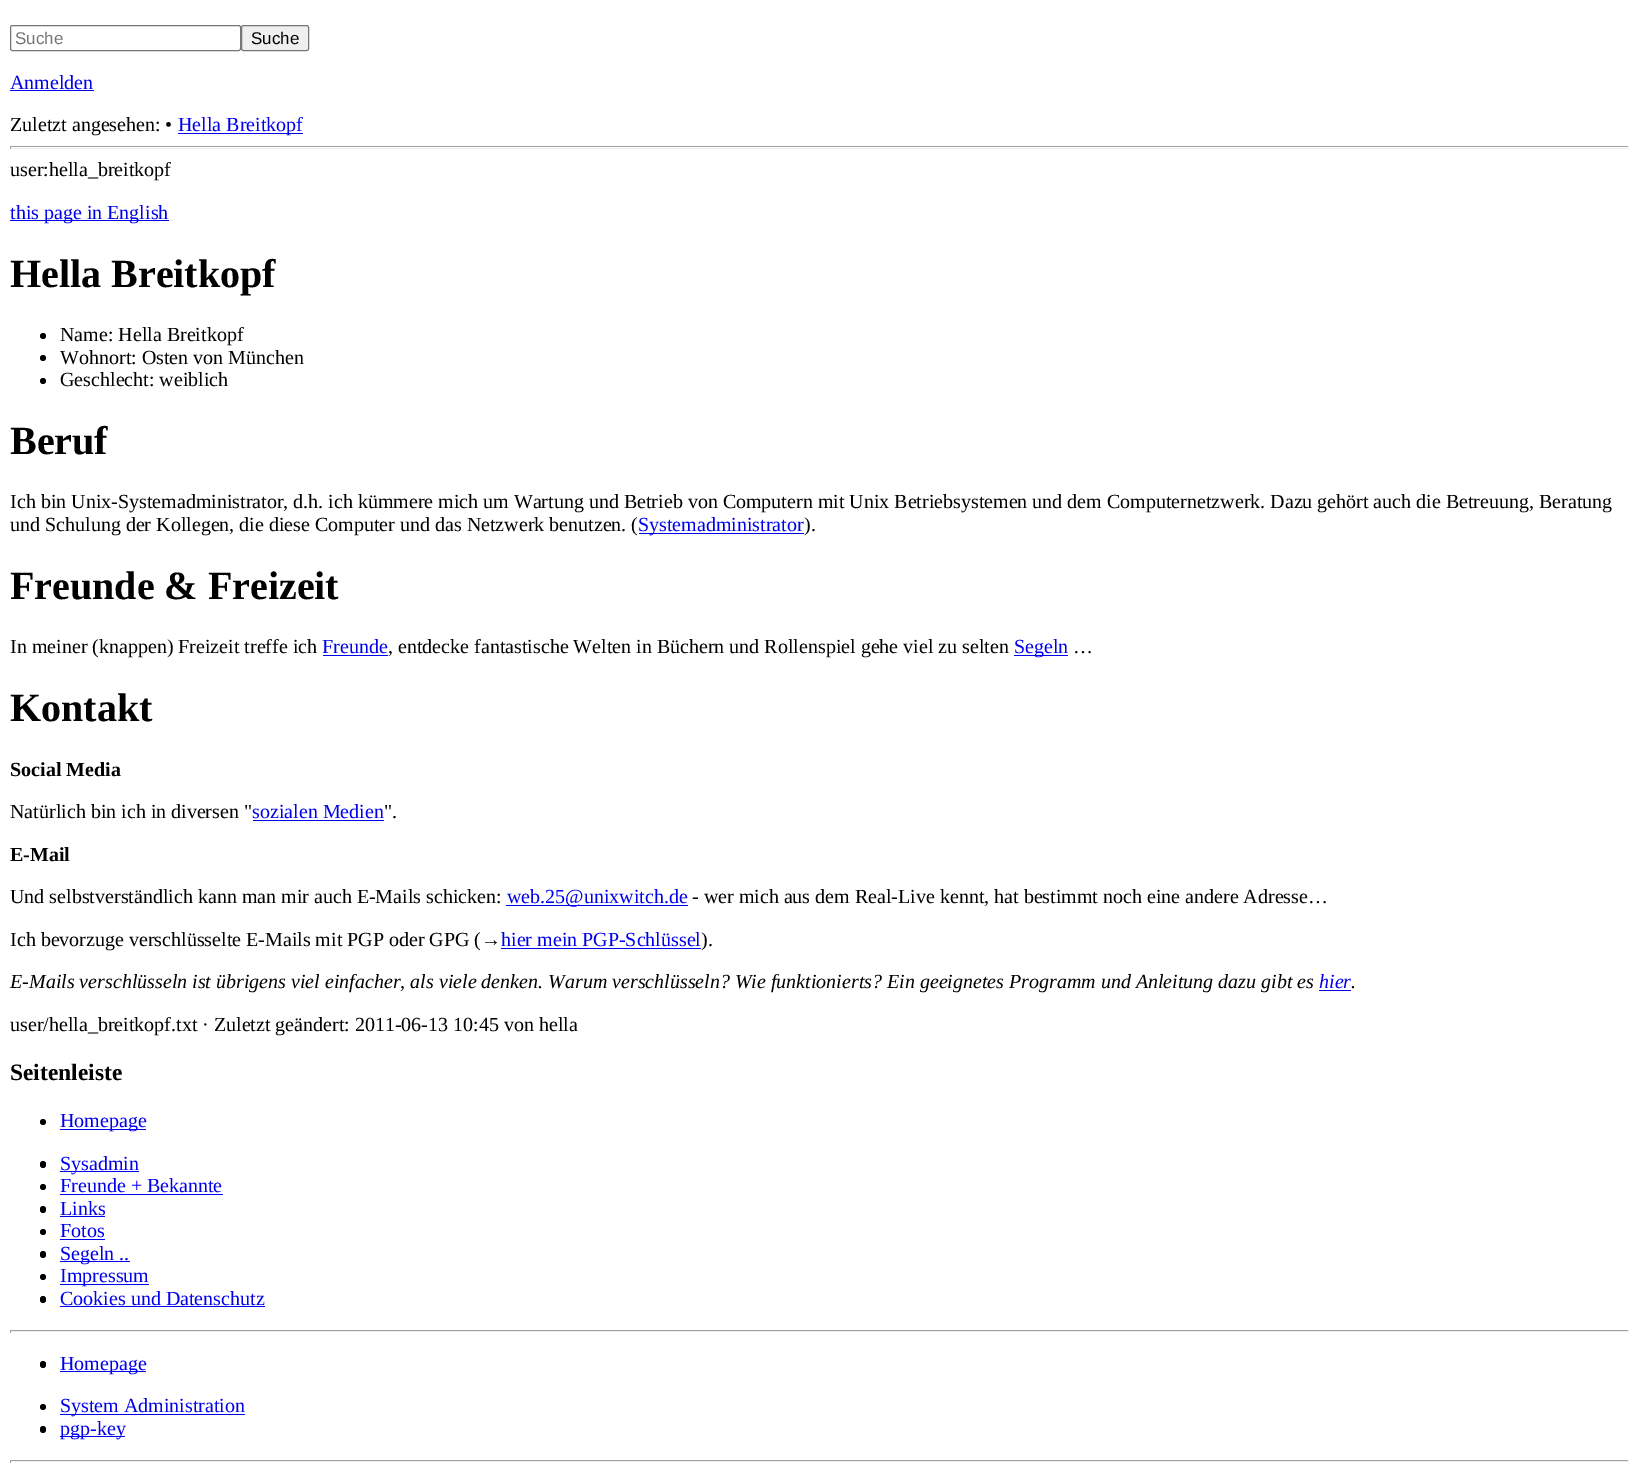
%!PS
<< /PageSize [1638 1472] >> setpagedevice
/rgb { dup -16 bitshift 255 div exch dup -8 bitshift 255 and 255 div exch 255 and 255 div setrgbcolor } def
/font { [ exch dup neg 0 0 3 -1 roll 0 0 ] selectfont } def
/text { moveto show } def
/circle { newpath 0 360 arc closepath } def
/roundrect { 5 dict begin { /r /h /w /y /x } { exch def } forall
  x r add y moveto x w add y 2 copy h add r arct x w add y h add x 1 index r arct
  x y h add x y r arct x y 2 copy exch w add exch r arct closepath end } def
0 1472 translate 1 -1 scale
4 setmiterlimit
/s1 { /LiberationSans-Regular 17 font 16#757575 rgb } def
/s2 { /LiberationSans-Regular 17 font 16#000000 rgb } def
/s3 { /LiberationSerif-Regular 20 font 16#0000EE rgb } def
/s4 { /LiberationSerif-Regular 20 font 16#000000 rgb } def
/s5 { /LiberationSerif-Bold 40 font 16#000000 rgb } def
/s6 { /LiberationSerif-Bold 20 font 16#000000 rgb } def
/s7 { /LiberationSerif-Italic 20 font 16#000000 rgb } def
/s8 { /LiberationSerif-Italic 20 font 16#0000EE rgb } def
/s9 { /LiberationSerif-Bold 23.5 font 16#000000 rgb } def
16#FFFFFF rgb
0 0 1638 1472 rectfill
16#767676 rgb
10.5 25.5 230 25 2 roundrect stroke
s1
(Suche) 15 44 text
16#EFEFEF rgb
241.5 25.5 67 25 2 roundrect gsave fill grestore
16#767676 rgb
stroke
s2
(Suche) 251 44 text
s3
(Anmelden) 10 89 text
10 90 84 1 rectfill
s4
(Zuletzt angesehen: •) 10 131 text
16#0000EE rgb
178 133 125 1 rectfill
(Hella Breitkopf) 178 131 text
16#9F9F9F rgb
10 146 1619 1 rectfill
16#EEEEEE rgb
1628 146 1 3 rectfill
10 148 1619 1 rectfill
16#9F9F9F rgb
10 146 1 3 rectfill
s4
(user:hella_breitkopf) 10 176 text
16#0000EE rgb
10 220 159 1 rectfill
(this page in English) 10 219 text
s5
(Hella Breitkopf) 10 287 text
43 336 3 circle fill
s4
(Name: Hella Breitkopf) 60 341 text
43 358 3 circle fill
(Wohnort: Osten von München) 60 364 text
43 381 3 circle fill
(Geschlecht: weiblich) 60 386 text
s5
(Beruf) 10 454 text
s4
(Ich bin Unix-Systemadministrator, d.h. ich kümmere mich um Wartung und Betrieb von Computern mit Unix Betriebsystemen und dem Computernetzwerk. Dazu gehört auch die Betreuung, Beratung) 10 508 text
(und Schulung der Kollegen, die diese Computer und das Netzwerk benutzen. \() 10 531 text
16#0000EE rgb
639 533 165 1 rectfill
(Systemadministrator) 638 531 text
s4
(\).) 804 531 text
s5
(Freunde & Freizeit) 10 599 text
s4
(In meiner \(knappen\) Freizeit treffe ich) 10 653 text
s3
(Freunde) 322 653 text
323 655 65 1 rectfill
s4
(, entdecke fantastische Welten in Büchern und Rollenspiel gehe viel zu selten) 388 653 text
16#0000EE rgb
1014 655 54 1 rectfill
(Segeln) 1014 653 text
s4
(…) 1073 653 text
s5
(Kontakt) 10 721 text
s6
(Social Media) 10 776 text
s4
(Natürlich bin ich in diversen ") 10 818 text
s3
(sozialen Medien) 252 818 text
253 820 131 1 rectfill
s4
(".) 384 818 text
s6
(E-Mail) 10 861 text
s4
(Und selbstverständlich kann man mir auch E-Mails schicken:) 10 903 text
16#0000EE rgb
506 905 182 1 rectfill
(web.25@unixwitch.de) 507 903 text
s4
(- wer mich aus dem Real-Live kennt, hat bestimmt noch eine andere Adresse…) 692 903 text
(Ich bevorzuge verschlüsselte E-Mails mit PGP oder GPG \(→) 10 946 text
s3
(hier mein PGP-Schlüssel) 501 946 text
501 948 200 1 rectfill
s4
(\).) 701 946 text
s7
(E-Mails verschlüsseln ist übrigens viel einfacher, als viele denken. Warum verschlüsseln? Wie funktionierts? Ein geeignetes Programm und Anleitung dazu gibt es) 10 988 text
s8
(hier) 1319 988 text
s7
(.) 1351 988 text
16#0000EE rgb
1319 990 32 1 rectfill
s4
(user/hella_breitkopf.txt · Zuletzt geändert: 2011-06-13 10:45 von hella) 10 1031 text
s9
(Seitenleiste) 10 1080 text
43 1122 3 circle fill
16#0000EE rgb
60 1129 86 1 rectfill
s3
(Homepage) 60 1127 text
16#000000 rgb
40 1161 6 7 3 roundrect fill
16#0000EE rgb
60 1171 79 1 rectfill
(Sysadmin) 60 1170 text
16#000000 rgb
43 1187 3 circle fill
s3
(Freunde + Bekannte) 60 1192 text
60 1194 163 1 rectfill
16#000000 rgb
40 1206 6 7 3 roundrect fill
s3
(Links) 60 1215 text
60 1216 45 1 rectfill
16#000000 rgb
43 1232 3 circle fill
s3
(Fotos) 60 1237 text
60 1239 45 1 rectfill
16#000000 rgb
40 1251 6 7 3 roundrect fill
16#0000EE rgb
60 1261 70 1 rectfill
(Segeln ..) 60 1260 text
16#000000 rgb
43 1277 3 circle fill
16#0000EE rgb
60 1284 89 1 rectfill
(Impressum) 60 1282 text
16#000000 rgb
40 1296 6 7 3 roundrect fill
s3
(Cookies und Datenschutz) 60 1305 text
60 1306 205 1 rectfill
16#9F9F9F rgb
10 1330 1619 1 rectfill
16#EEEEEE rgb
1628 1330 1 3 rectfill
10 1331 1619 1 rectfill
16#9F9F9F rgb
10 1330 1 3 rectfill
16#000000 rgb
40 1361 6 7 3 roundrect fill
16#0000EE rgb
60 1371 86 1 rectfill
(Homepage) 60 1370 text
16#000000 rgb
43 1407 3 circle fill
16#0000EE rgb
60 1414 185 1 rectfill
(System Administration) 60 1412 text
16#000000 rgb
40 1426 6 7 3 roundrect fill
16#0000EE rgb
60 1436 65 1 rectfill
(pgp-key) 60 1435 text
16#9F9F9F rgb
10 1460 1619 1 rectfill
16#EEEEEE rgb
1628 1460 1 3 rectfill
10 1461 1619 1 rectfill
16#9F9F9F rgb
10 1460 1 3 rectfill
showpage
